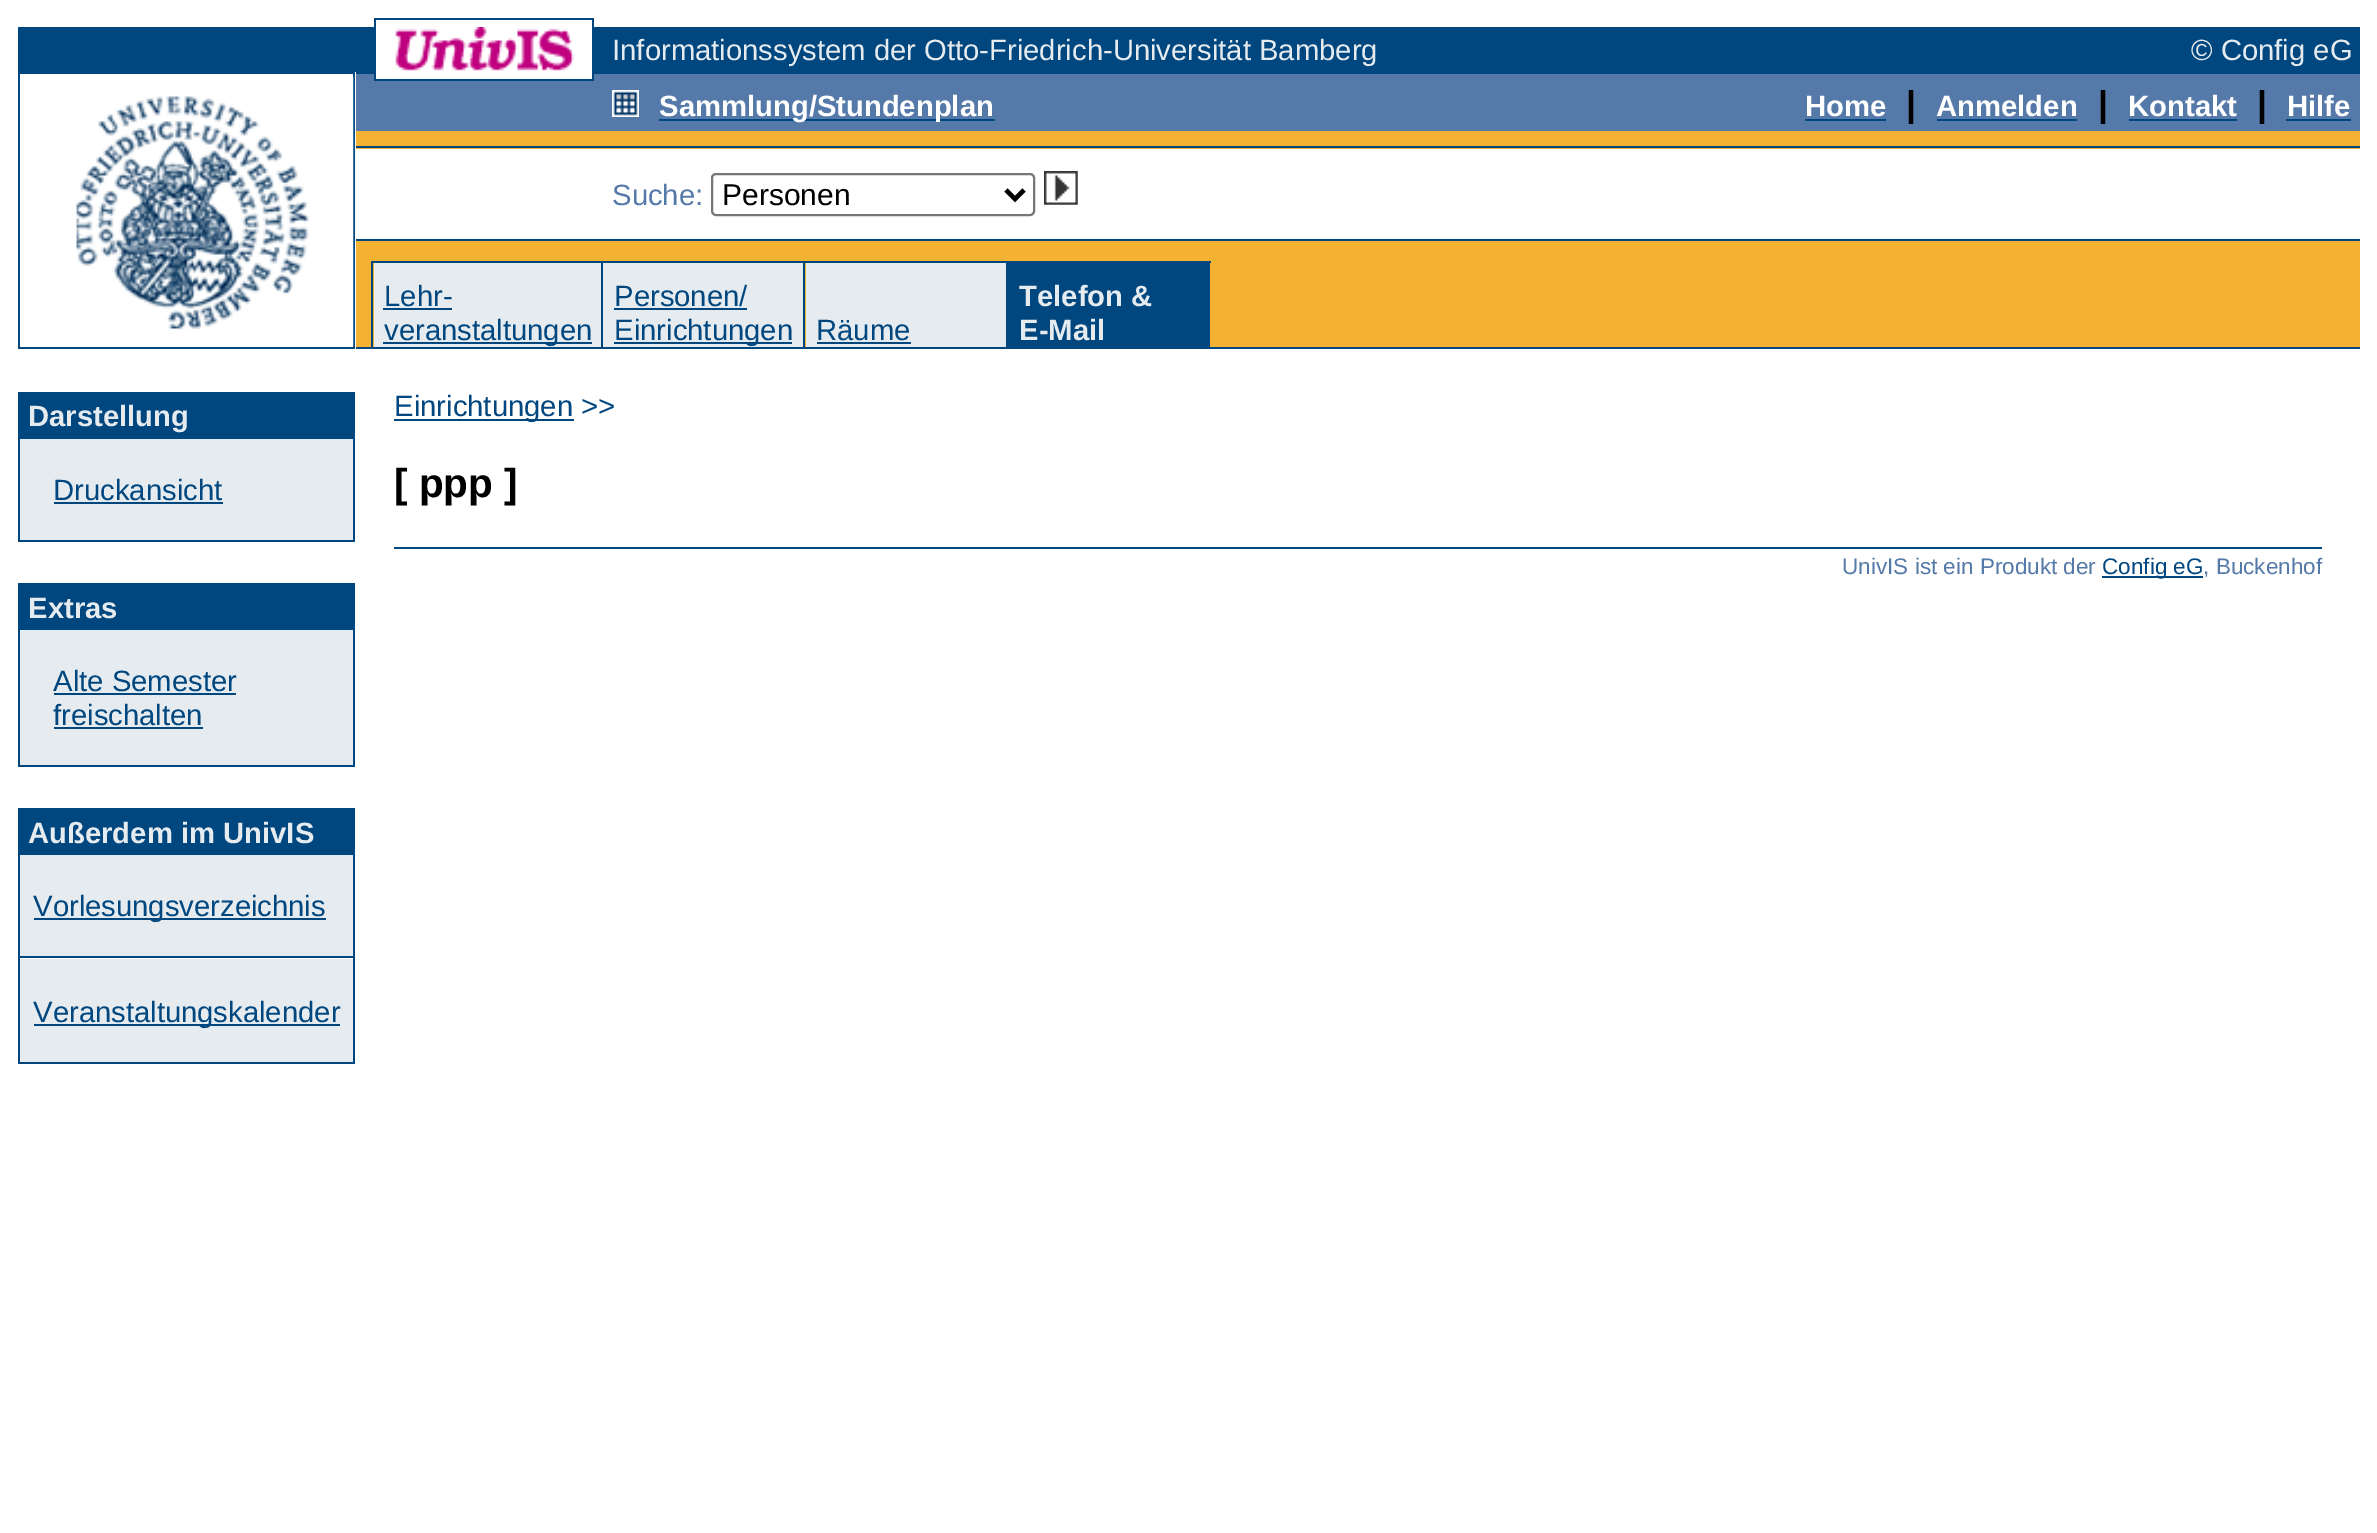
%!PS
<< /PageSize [2377 1533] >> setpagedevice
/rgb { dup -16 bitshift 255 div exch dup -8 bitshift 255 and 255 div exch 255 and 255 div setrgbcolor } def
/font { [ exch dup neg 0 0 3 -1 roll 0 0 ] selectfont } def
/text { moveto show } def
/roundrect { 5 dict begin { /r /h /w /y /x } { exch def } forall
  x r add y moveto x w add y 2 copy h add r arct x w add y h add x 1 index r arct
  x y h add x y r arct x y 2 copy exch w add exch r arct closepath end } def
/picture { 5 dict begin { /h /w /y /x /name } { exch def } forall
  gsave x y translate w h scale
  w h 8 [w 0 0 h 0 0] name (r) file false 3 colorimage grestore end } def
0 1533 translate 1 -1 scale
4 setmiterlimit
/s1 { /LiberationSans-Regular 29.25 font 16#E5EBEF rgb } def
/s2 { /LiberationSans-Bold 29.25 font 16#FFFFFF rgb } def
/s3 { /LiberationSans-Bold 36 font 16#000000 rgb } def
/s4 { /LiberationSans-Regular 29.25 font 16#557AA9 rgb } def
/s5 { /LiberationSans-Regular 30 font 16#000000 rgb } def
/s6 { /LiberationSans-Regular 29.25 font 16#00467F rgb } def
/s7 { /LiberationSans-Bold 29.25 font 16#E5EBEF rgb } def
/s8 { /LiberationSans-Bold 40.5 font 16#000000 rgb } def
/s9 { /LiberationSans-Regular 22.5 font 16#557AA9 rgb } def
/s10 { /LiberationSans-Regular 22.5 font 16#00467F rgb } def
16#FFFFFF rgb
0 0 2377 1533 rectfill
16#00467F rgb
374 18 220 2 rectfill
374 20 2 7 rectfill
592 20 2 52 rectfill
18 27 358 45 rectfill
(pic1.raw) 395 27 180 44 picture
594 27 1766 45 rectfill
s1
(Informationssystem der Otto-Friedrich-Universität Bamberg) 612 60 text
(© Config eG) 2191 60 text
16#00467F rgb
18 72 337 2 rectfill
356 72 2004 2 rectfill
16#FFFFFF rgb
376 72 216 2 rectfill
16#00467F rgb
18 74 2 275 rectfill
353 74 2 273 rectfill
(pic2.raw) 76 76 278 271 picture
16#F3B231 rgb
356 131 2004 216 rectfill
16#557AA9 rgb
356 74 2004 5 rectfill
16#00467F rgb
374 74 2 5 rectfill
16#FFFFFF rgb
376 74 216 5 rectfill
16#00467F rgb
592 74 2 5 rectfill
16#557AA9 rgb
356 79 2004 4 rectfill
16#00467F rgb
374 79 220 2 rectfill
16#557AA9 rgb
356 83 2004 48 rectfill
(pic3.raw) 612 90 27 27 picture
16#00467F rgb
659 119 336 2 rectfill
s2
(Sammlung/Stundenplan) 659 116 text
(Home) 1805 116 text
16#00467F rgb
1805 119 81 2 rectfill
s3
(|) 1906 116 text
s2
(Anmelden) 1936 116 text
16#00467F rgb
1937 119 140 2 rectfill
s3
(|) 2098 116 text
s2
(Kontakt) 2128 116 text
16#00467F rgb
2129 119 108 2 rectfill
s3
(|) 2257 116 text
s2
(Hilfe) 2287 116 text
16#00467F rgb
2286 119 65 2 rectfill
356 146 2004 2 rectfill
16#FFFFFF rgb
356 149 2004 90 rectfill
s4
(Suche:) 612 205 text
16#767676 rgb
2 setlinewidth
712 174 322 41 4 roundrect stroke
16#000000 rgb
4.5 setlinewidth
1006 190 moveto 1015 199 lineto 1024 190 lineto stroke
s5
(Personen) 722 205 text
(pic4.raw) 1044 171 34 34 picture
16#00467F rgb
356 239 2004 2 rectfill
371 261 840 2 rectfill
371 263 2 84 rectfill
16#E5EBEF rgb
374 263 227 84 rectfill
16#00467F rgb
601 263 2 84 rectfill
16#E5EBEF rgb
603 263 200 84 rectfill
16#00467F rgb
803 263 2 84 rectfill
16#E5EBEF rgb
806 263 200 84 rectfill
16#00467F rgb
1006 263 204 84 rectfill
s6
(Lehr-) 384 306 text
383 308 69 2 rectfill
383 342 209 2 rectfill
(veranstaltungen) 384 340 text
(Personen/) 614 306 text
614 308 133 2 rectfill
614 342 178 2 rectfill
(Einrichtungen) 614 340 text
(Räume) 816 340 text
817 342 94 2 rectfill
s7
(Telefon &) 1019 306 text
(E-Mail) 1019 340 text
16#00467F rgb
20 347 335 2 rectfill
356 347 2004 2 rectfill
18 392 2 150 rectfill
20 392 333 47 rectfill
353 392 2 150 rectfill
s7
(Darstellung) 28 426 text
20 439 333 101 rectfill
s6
(Druckansicht) 53 500 text
54 502 169 2 rectfill
20 540 333 2 rectfill
18 583 2 184 rectfill
20 583 333 47 rectfill
353 583 2 184 rectfill
s7
(Extras) 28 618 text
20 630 333 135 rectfill
s6
(Alte Semester) 53 691 text
54 693 182 2 rectfill
(freischalten) 53 725 text
54 727 149 2 rectfill
20 765 333 2 rectfill
18 808 2 256 rectfill
20 808 333 47 rectfill
353 808 2 256 rectfill
s7
(Außerdem im UnivIS) 28 843 text
20 855 333 101 rectfill
16#00467F rgb
34 918 292 2 rectfill
s6
(Vorlesungsverzeichnis) 33 916 text
20 956 333 2 rectfill
16#E5EBEF rgb
20 959 333 2 rectfill
20 961 333 101 rectfill
16#00467F rgb
34 1024 306 2 rectfill
(Veranstaltungskalender) 33 1022 text
20 1062 333 2 rectfill
394 419 180 2 rectfill
(Einrichtungen >>) 394 416 text
s8
([ ppp ]) 394 497 text
16#00467F rgb
394 547 1928 2 rectfill
s9
(UnivIS ist ein Produkt der) 1842 574 text
16#00467F rgb
2102 576 101 2 rectfill
(Config eG) 2102 574 text
s9
(, Buckenhof) 2203 574 text
showpage
